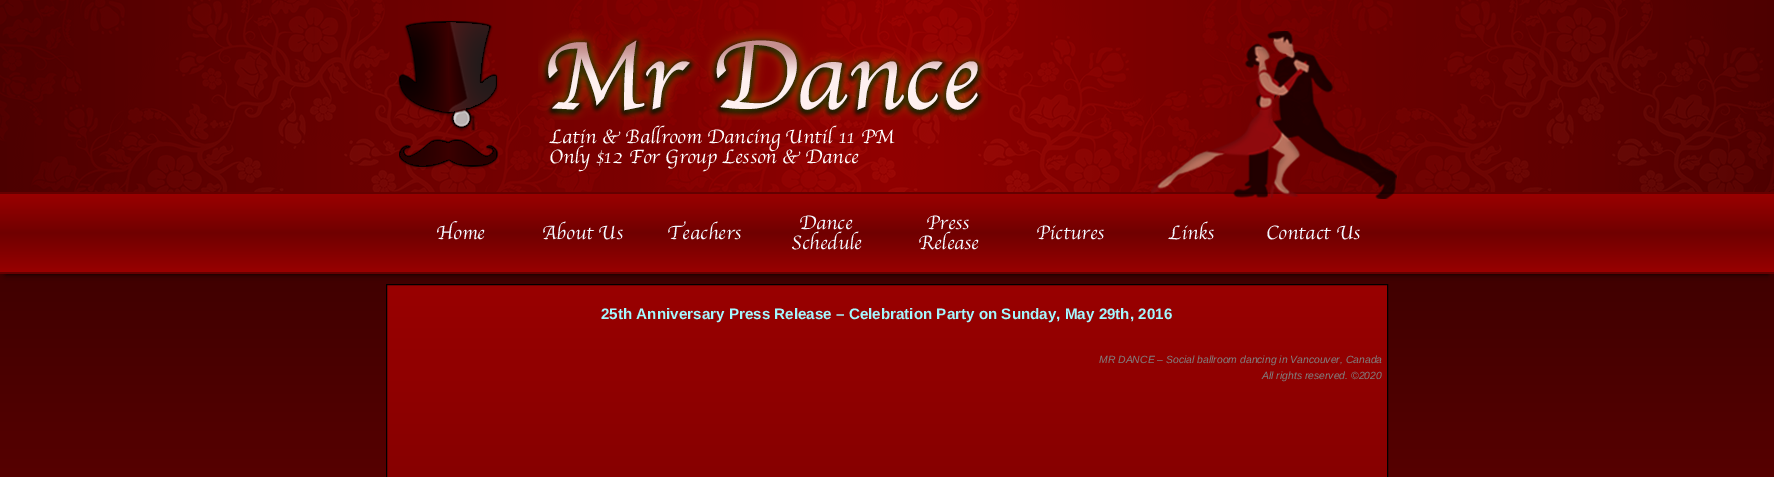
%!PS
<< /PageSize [1774 477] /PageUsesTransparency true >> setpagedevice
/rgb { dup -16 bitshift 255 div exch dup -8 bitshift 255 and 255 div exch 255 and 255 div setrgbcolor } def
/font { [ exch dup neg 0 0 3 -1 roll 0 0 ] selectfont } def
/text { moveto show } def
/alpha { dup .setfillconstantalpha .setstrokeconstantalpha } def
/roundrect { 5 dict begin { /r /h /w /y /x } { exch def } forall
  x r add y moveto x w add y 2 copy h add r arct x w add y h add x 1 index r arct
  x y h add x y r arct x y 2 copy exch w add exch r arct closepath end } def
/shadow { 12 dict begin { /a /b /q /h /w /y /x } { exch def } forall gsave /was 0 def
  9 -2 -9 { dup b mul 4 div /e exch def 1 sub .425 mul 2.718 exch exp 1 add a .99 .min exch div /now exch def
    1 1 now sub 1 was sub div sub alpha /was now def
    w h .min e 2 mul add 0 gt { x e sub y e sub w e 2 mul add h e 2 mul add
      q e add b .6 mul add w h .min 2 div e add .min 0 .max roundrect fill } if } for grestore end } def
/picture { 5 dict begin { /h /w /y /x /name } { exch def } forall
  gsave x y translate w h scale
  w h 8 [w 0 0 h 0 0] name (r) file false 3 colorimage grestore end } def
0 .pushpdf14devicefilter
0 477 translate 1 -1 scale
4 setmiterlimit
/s1 { /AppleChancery-Thin 20 font 16#FFFFFF rgb } def
/s2 { /AppleChancery-Thin 20 font 16#F4F8FF rgb } def
/s3 { /LiberationSans-Bold 15.2 font 16#A4F8FF rgb } def
/s4 { /LiberationSans-Italic 10.4 font 16#808080 rgb } def
16#FFFFFF rgb
0 0 1774 477 rectfill
(pic1.raw) 0 0 1774 192 picture
(pic2.raw) 397 20 102 149 picture
(pic3.raw) 538 29 450 91 picture
s1
(Latin & Ballroom Dancing Until 11 PM) 549 143 text
(Only $12 For Group Lesson & Dance) 549 163 text
gsave 0 274 moveto 1774 274 lineto 1774 477 lineto 0 477 lineto closepath clip newpath
<< /ShadingType 2 /ColorSpace /DeviceRGB /Coords [887 274 887 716] /Extend [true true] /Function << /FunctionType 2 /Domain [0 1] /C0 [0.251 0 0] /C1 [0.439 0 0] /N 1 >> >> shfill grestore
16#000000 rgb
6 204 1762 70 0 3 1 shadow
gsave 0 194 moveto 1774 194 lineto 1774 272 lineto 0 272 lineto closepath clip newpath
<< /ShadingType 2 /ColorSpace /DeviceRGB /Coords [887 194 887 272] /Extend [true true] /Function << /FunctionType 3 /Domain [0 1] /Functions [<< /FunctionType 2 /Domain [0 1] /C0 [0.6 0 0] /C1 [0.529 0 0] /N 1 >> << /FunctionType 2 /Domain [0 1] /C0 [0.529 0 0] /C1 [0.439 0 0] /N 1 >> << /FunctionType 2 /Domain [0 1] /C0 [0.439 0 0] /C1 [0.529 0 0] /N 1 >> << /FunctionType 2 /Domain [0 1] /C0 [0.529 0 0] /C1 [0.6 0 0] /N 1 >>] /Bounds [0.24 0.5 0.79] /Encode [0 1 0 1 0 1 0 1] >> >> shfill grestore
16#650000 rgb
0 192 1774 2 rectfill
(pic4.raw) 1151 31 246 168 picture
0 272 1774 2 rectfill
s2
(Home) 436 239 text
(About Us) 542 239 text
(Teachers) 667 239 text
(Dance) 799 229 text
(Schedule) 791 249 text
(Press) 926 229 text
(Release) 918 249 text
(Pictures) 1036 239 text
(Links) 1168 239 text
(Contact Us) 1266 239 text
gsave 387 285 moveto 1387 285 lineto 1387 477 lineto 387 477 lineto closepath clip newpath
<< /ShadingType 2 /ColorSpace /DeviceRGB /Coords [887 285 887 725] /Extend [true true] /Function << /FunctionType 2 /Domain [0 1] /C0 [0.6 0 0] /C1 [0.439 0 0] /N 1 >> >> shfill grestore
16#000000 rgb
386.5 284.5 1001 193 rectstroke
s3
(25th Anniversary Press Release – Celebration Party on Sunday, May 29th, 2016) 601 319 text
s4
(MR DANCE – Social ballroom dancing in Vancouver, Canada) 1099 363 text
(All rights reserved. ©2020) 1262 379 text
.poppdf14devicefilter showpage
